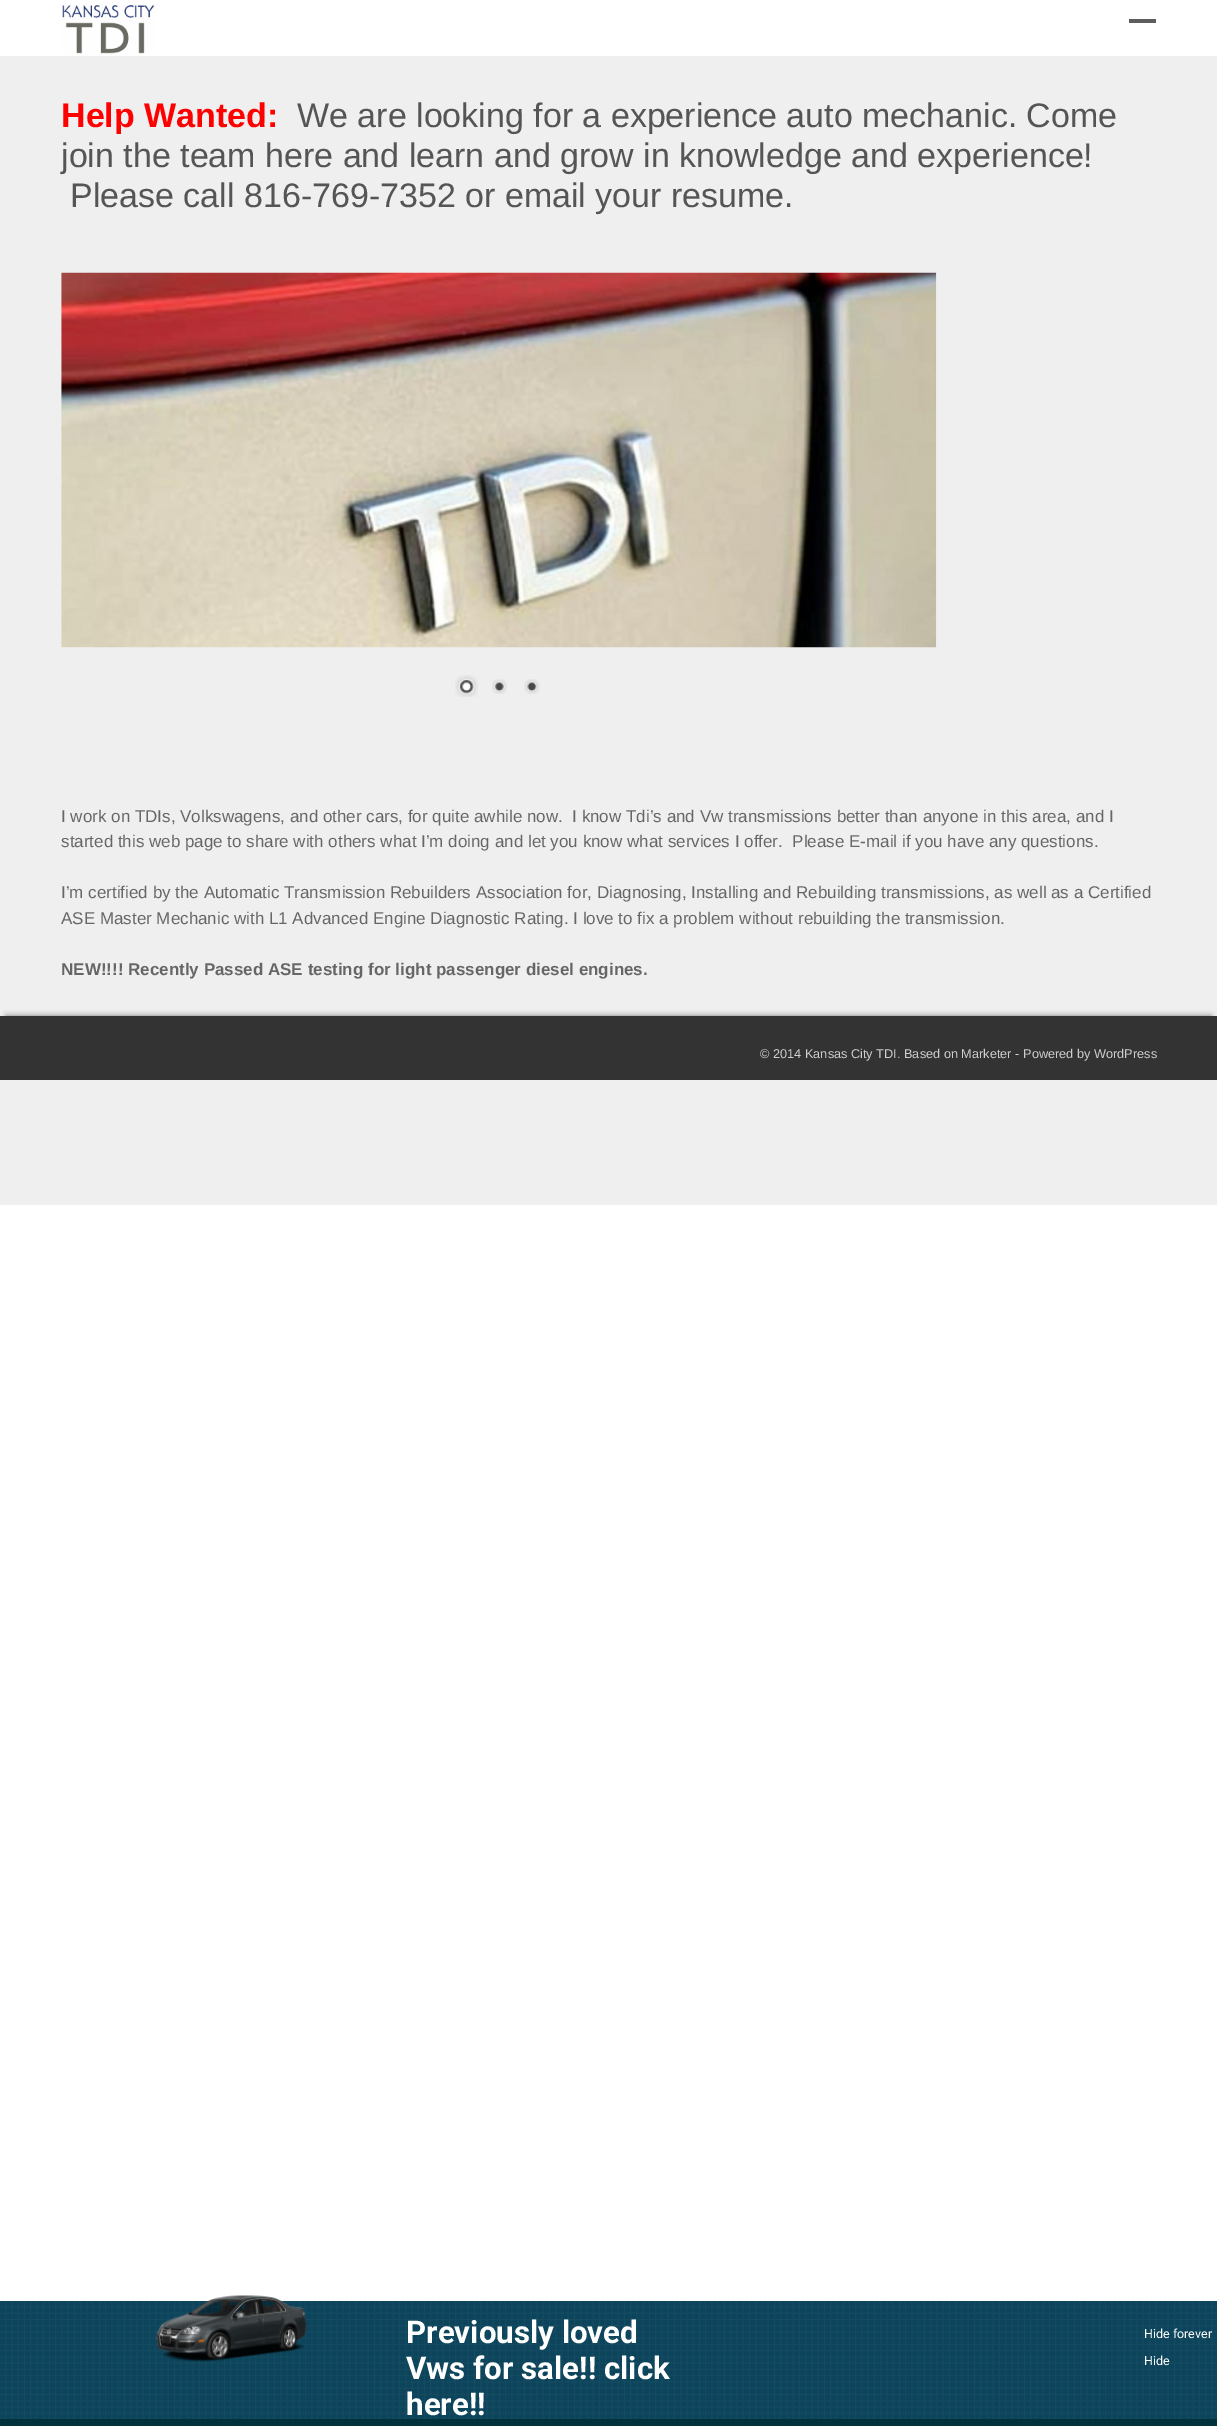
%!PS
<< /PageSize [1217 2426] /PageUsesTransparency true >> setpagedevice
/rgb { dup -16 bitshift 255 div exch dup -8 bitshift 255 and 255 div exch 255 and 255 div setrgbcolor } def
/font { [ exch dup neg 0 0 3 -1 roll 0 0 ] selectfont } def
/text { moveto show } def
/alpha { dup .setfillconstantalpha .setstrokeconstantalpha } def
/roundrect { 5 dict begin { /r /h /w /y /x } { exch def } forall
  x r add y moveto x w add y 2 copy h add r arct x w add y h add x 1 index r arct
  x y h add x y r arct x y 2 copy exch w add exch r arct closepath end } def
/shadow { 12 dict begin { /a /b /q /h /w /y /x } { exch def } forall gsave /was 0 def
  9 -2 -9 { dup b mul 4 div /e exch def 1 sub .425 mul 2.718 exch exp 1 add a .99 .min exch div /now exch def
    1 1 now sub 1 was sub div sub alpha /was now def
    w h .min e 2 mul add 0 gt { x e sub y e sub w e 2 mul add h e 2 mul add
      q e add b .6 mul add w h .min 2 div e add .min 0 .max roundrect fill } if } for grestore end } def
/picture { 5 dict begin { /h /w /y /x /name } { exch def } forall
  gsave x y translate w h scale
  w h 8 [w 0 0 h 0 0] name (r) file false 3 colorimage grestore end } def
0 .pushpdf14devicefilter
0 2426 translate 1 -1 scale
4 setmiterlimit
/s1 { /LiberationSans-Bold 34 font 16#FF0000 rgb } def
/s2 { /LiberationSans-Regular 34 font 16#555555 rgb } def
/s3 { /LiberationSans-Regular 17 font 16#666666 rgb } def
/s4 { /LiberationSans-Bold 17 font 16#666666 rgb } def
/s5 { /LiberationSans-Regular 12.75 font 16#CFCFCF rgb } def
/s6 { /Roboto-Bold 31.25 font 16#FFFFFF rgb } def
/s7 { /Roboto-Regular 12.5 font 16#FFFFFF rgb } def
16#FFFFFF rgb
0 0 1217 2426 rectfill
16#EFEFEF rgb
0 56 1217 1149 rectfill
(pic1.raw) 62 5 93 49 picture
16#5D5D5D rgb
1129 19 27 4 rectfill
s1
(Help Wanted:) 61 127 text
s2
(We are looking for a experience auto mechanic. Come) 297 127 text
(join the team here and learn and grow in knowledge and experience!) 61 167 text
(Please call 816-769-7352 or email your resume.) 70 207 text
(pic2.raw) 61 272 876 376 picture
(pic3.raw) 455 675 23 22 picture
(pic4.raw) 492 679 15 15 picture
(pic5.raw) 524 679 16 15 picture
s3
(I work on TDIs, Volkswagens, and other cars, for quite awhile now.  I know Tdi’s and Vw transmissions better than anyone in this area, and I) 61 822 text
(started this web page to share with others what I’m doing and let you know what services I offer.  Please E-mail if you have any questions.) 61 847 text
(I’m certified by the Automatic Transmission Rebuilders Association for, Diagnosing, Installing and Rebuilding transmissions, as well as a Certified) 61 898 text
(ASE Master Mechanic with L1 Advanced Engine Diagnostic Rating. I love to fix a problem without rebuilding the transmission.) 61 924 text
s4
(NEW!!!! Recently Passed ASE testing for light passenger diesel engines.) 61 975 text
16#000000 rgb
6 1016 1205 52 0 3 0.5 shadow
16#333333 rgb
0 1016 1217 64 rectfill
s5
(© 2014 Kansas City TDI. Based on Marketer - Powered by WordPress) 760 1058 text
16#0C445B rgb
0 2301 1217 118 rectfill
(pic6.raw) 0 2301 1217 118 picture
16#01313B rgb
0 2419 1217 7 rectfill
(pic7.raw) 156 2295 151 67 picture
s6
(Previously loved) 406 2343 text
(Vws for sale!! click) 406 2379 text
(here!!) 406 2415 text
s7
(Hide forever) 1144 2338 text
(Hide) 1144 2365 text
.poppdf14devicefilter showpage
